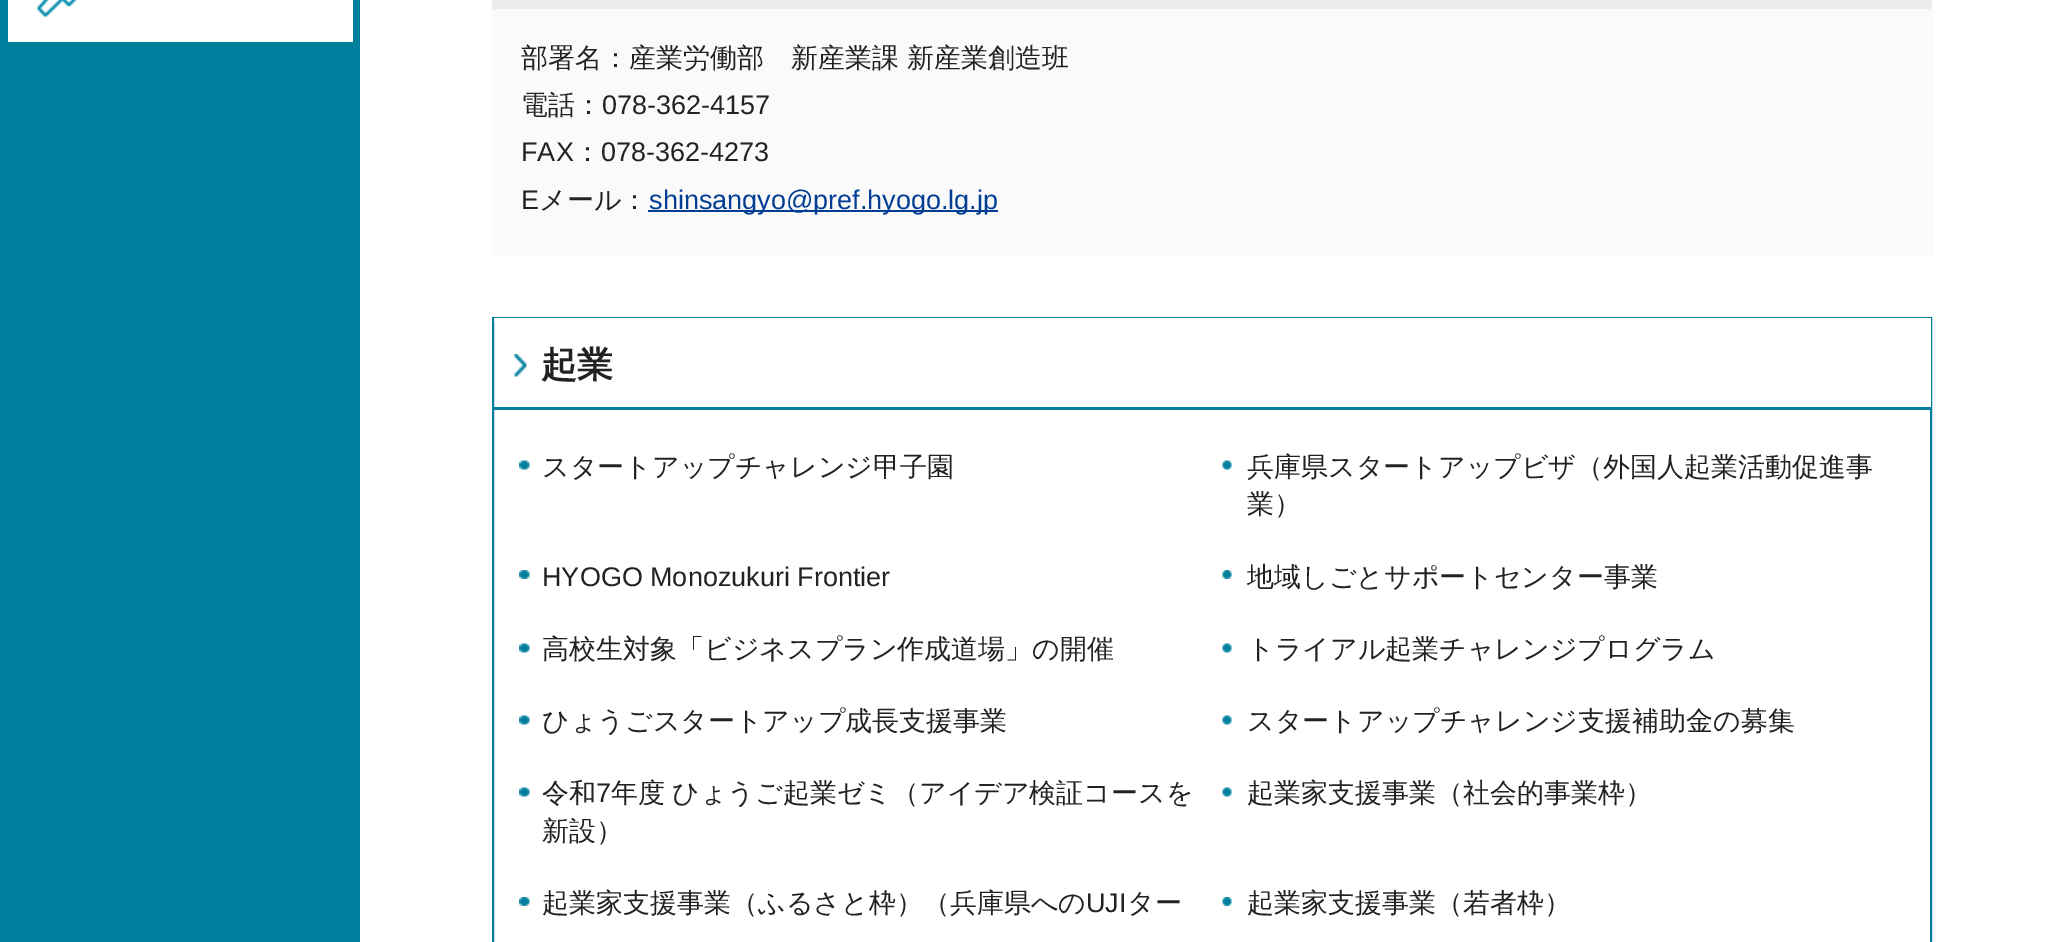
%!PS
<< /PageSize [2062 942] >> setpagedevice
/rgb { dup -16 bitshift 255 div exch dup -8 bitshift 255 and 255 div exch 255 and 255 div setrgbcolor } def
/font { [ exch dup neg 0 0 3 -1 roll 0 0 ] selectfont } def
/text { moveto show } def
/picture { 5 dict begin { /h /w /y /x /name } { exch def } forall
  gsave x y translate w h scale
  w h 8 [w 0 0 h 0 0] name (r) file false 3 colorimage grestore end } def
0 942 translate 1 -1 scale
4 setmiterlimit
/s1 { /WenQuanYiZenHei-Medium 27 font 16#222222 rgb } def
/s2 { /LiberationSans-Regular 27 font 16#222222 rgb } def
/s3 { /LiberationSans-Regular 27 font 16#003D93 rgb } def
/s4 { /WenQuanYiZenHei-Bold 36 font 16#222222 rgb } def
16#FFFFFF rgb
0 0 2062 942 rectfill
16#037F9E rgb
0 0 360 942 rectfill
16#FFFFFF rgb
8 0 345 42 rectfill
(pic1.raw) 37 0 41 17 picture
16#FAFAFB rgb
492 9 1441 248 rectfill
16#ECECEE rgb
492 0 1440 9 rectfill
s1
(部署名：産業労働部　新産業課) 521 67 text
(新産業創造班) 907 67 text
(電話：) 521 114 text
s2
(078-362-4157) 602 114 text
(FAX) 521 161 text
s1
(：) 574 161 text
s2
(078-362-4273) 601 161 text
(E) 521 209 text
s1
(メール：) 539 209 text
16#003D93 rgb
648 210 350 2 rectfill
s3
(shinsangyo@pref.hyogo.lg.jp) 649 209 text
16#037F9E rgb
2 setlinewidth
493 318 1438 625 rectstroke
494 407 1437 3 rectfill
(pic2.raw) 514 354 13 23 picture
16#FFFFFF rgb
494 318 1437 3 rectfill
1930 318 1 89 rectfill
s4
(起業) 541 377 text
(pic3.raw) 519 460 11 10 picture
s1
(スタートアップチャレンジ甲子園) 542 476 text
(pic4.raw) 1222 460 10 10 picture
(兵庫県スタートアップビザ（外国人起業活動促進事) 1247 476 text
(業）) 1247 513 text
(pic5.raw) 519 570 11 9 picture
s2
(HYOGO Monozukuri Frontier) 542 586 text
(pic6.raw) 1222 570 10 9 picture
s1
(地域しごとサポートセンター事業) 1247 586 text
(pic3.raw) 519 643 11 10 picture
(高校生対象「ビジネスプラン作成道場」の開催) 542 658 text
(pic4.raw) 1222 643 10 10 picture
(トライアル起業チャレンジプログラム) 1247 658 text
(pic3.raw) 519 715 11 10 picture
(ひょうごスタートアップ成長支援事業) 542 730 text
(pic4.raw) 1222 715 10 10 picture
(スタートアップチャレンジ支援補助金の募集) 1247 730 text
(pic3.raw) 519 787 11 10 picture
(令和) 542 802 text
s2
(7) 596 802 text
/WenQuanYiZenHei-Medium 27 font
611 802 moveto -1 0 32 (年度 ひょうご起業ゼミ（アイデア検証コースを) widthshow
(新設）) 542 840 text
(pic4.raw) 1222 787 10 10 picture
(起業家支援事業（社会的事業枠）) 1247 802 text
(pic5.raw) 519 897 11 9 picture
(起業家支援事業（ふるさと枠）（兵庫県への) 542 912 text
s2
(UJI) 1086 912 text
s1
(ター) 1127 912 text
(pic6.raw) 1222 897 10 9 picture
(起業家支援事業（若者枠）) 1247 912 text
showpage
